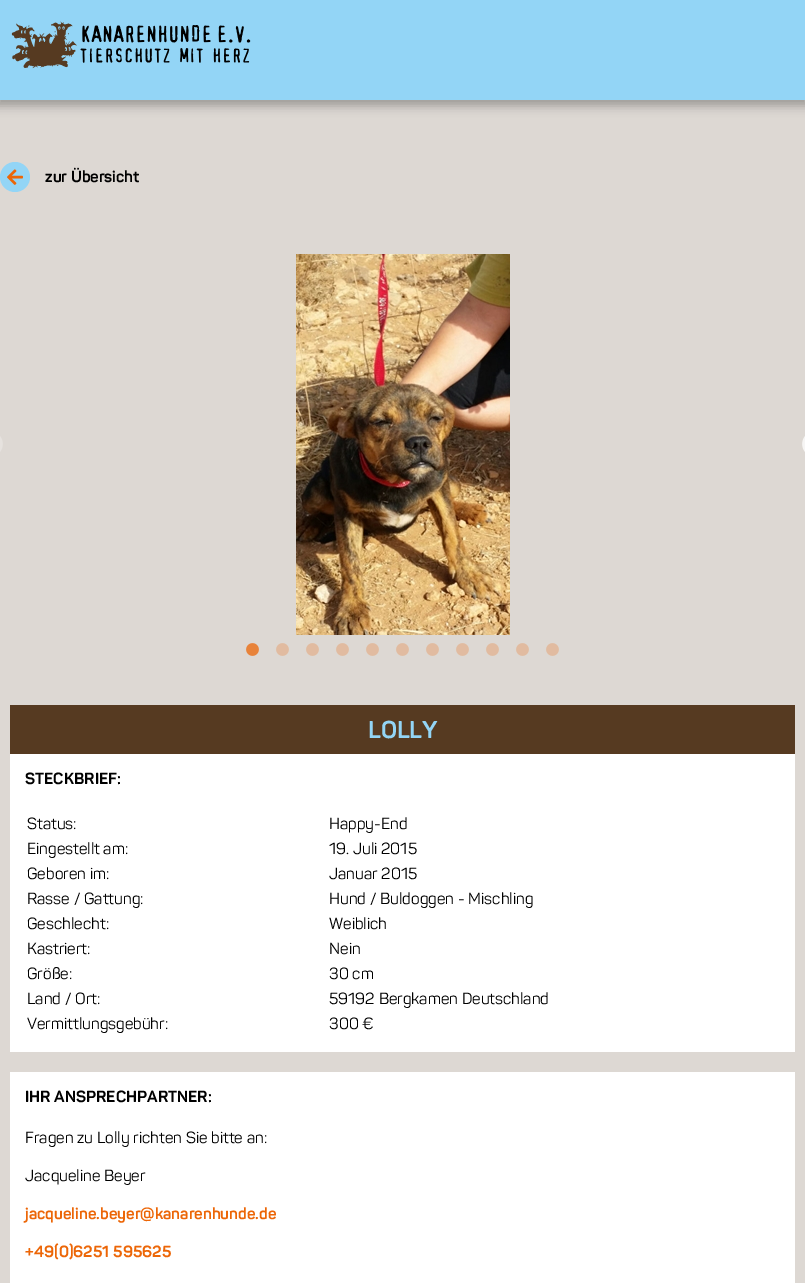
%!PS
<< /PageSize [805 1283] /PageUsesTransparency true >> setpagedevice
/rgb { dup -16 bitshift 255 div exch dup -8 bitshift 255 and 255 div exch 255 and 255 div setrgbcolor } def
/font { [ exch dup neg 0 0 3 -1 roll 0 0 ] selectfont } def
/text { moveto show } def
/alpha { dup .setfillconstantalpha .setstrokeconstantalpha } def
/circle { newpath 0 360 arc closepath } def
/roundrect { 5 dict begin { /r /h /w /y /x } { exch def } forall
  x r add y moveto x w add y 2 copy h add r arct x w add y h add x 1 index r arct
  x y h add x y r arct x y 2 copy exch w add exch r arct closepath end } def
/shadow { 12 dict begin { /a /b /q /h /w /y /x } { exch def } forall gsave /was 0 def
  9 -2 -9 { dup b mul 4 div /e exch def 1 sub .425 mul 2.718 exch exp 1 add a .99 .min exch div /now exch def
    1 1 now sub 1 was sub div sub alpha /was now def
    w h .min e 2 mul add 0 gt { x e sub y e sub w e 2 mul add h e 2 mul add
      q e add b .6 mul add w h .min 2 div e add .min 0 .max roundrect fill } if } for grestore end } def
/picture { 5 dict begin { /h /w /y /x /name } { exch def } forall
  gsave x y translate w h scale
  w h 8 [w 0 0 h 0 0] name (r) file false 3 colorimage grestore end } def
0 .pushpdf14devicefilter
0 1283 translate 1 -1 scale
4 setmiterlimit
/s1 { /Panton-Bold 16 font 16#000000 rgb } def
/s2 { /Panton-Bold 24 font 16#93D5F6 rgb } def
/s3 { /Panton-Regular 16 font 16#000000 rgb } def
/s4 { /Panton-Bold 16 font 16#EC6607 rgb } def
16#DDD8D3 rgb
0 0 805 1283 rectfill
16#000000 rgb
-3 0 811 106 0 5 0.29 shadow
16#93D5F6 rgb
0 0 805 100 rectfill
(pic1.raw) 11 21 240 48 picture
15 177 15 circle fill
(pic2.raw) 7 169 16 16 picture
s1
(zur Übersicht) 45 182 text
(pic3.raw) 0 436 3 16 picture
(pic4.raw) 296 254 214 381 picture
(pic5.raw) 802 436 3 16 picture
(pic6.raw) 246 643 13 13 picture
(pic7.raw) 276 643 13 13 picture
(pic7.raw) 306 643 13 13 picture
(pic7.raw) 336 643 13 13 picture
(pic7.raw) 366 643 13 13 picture
(pic7.raw) 396 643 13 13 picture
(pic7.raw) 426 643 13 13 picture
(pic7.raw) 456 643 13 13 picture
(pic7.raw) 486 643 13 13 picture
(pic7.raw) 516 643 13 13 picture
(pic7.raw) 546 643 13 13 picture
16#563A21 rgb
10 705 785 49 rectfill
s2
(LOLLY) 368 738 text
16#FFFFFF rgb
10 754 785 298 rectfill
s1
(STECKBRIEF:) 25 784 text
s3
(Status:) 27 829 text
(Happy-End) 329 829 text
(Eingestellt am:) 27 854 text
(19. Juli 2015) 329 854 text
(Geboren im:) 27 879 text
(Januar 2015) 329 879 text
(Rasse / Gattung:) 27 904 text
(Hund / Buldoggen - Mischling) 329 904 text
(Geschlecht:) 27 929 text
(Weiblich) 329 929 text
(Kastriert:) 27 954 text
(Nein) 329 954 text
(Größe:) 27 979 text
(30 cm) 329 979 text
(Land / Ort:) 27 1004 text
(59192 Bergkamen Deutschland) 329 1004 text
(Vermittlungsgebühr:) 27 1029 text
(300 €) 329 1029 text
16#FFFFFF rgb
10 1072 785 211 rectfill
s1
(IHR ANSPRECHPARTNER:) 25 1102 text
s3
(Fragen zu Lolly richten Sie bitte an:) 25 1143 text
(Jacqueline Beyer) 25 1181 text
s4
(jacqueline.beyer@kanarenhunde.de) 25 1219 text
(+49\(0\)6251 595625) 25 1257 text
.poppdf14devicefilter showpage
